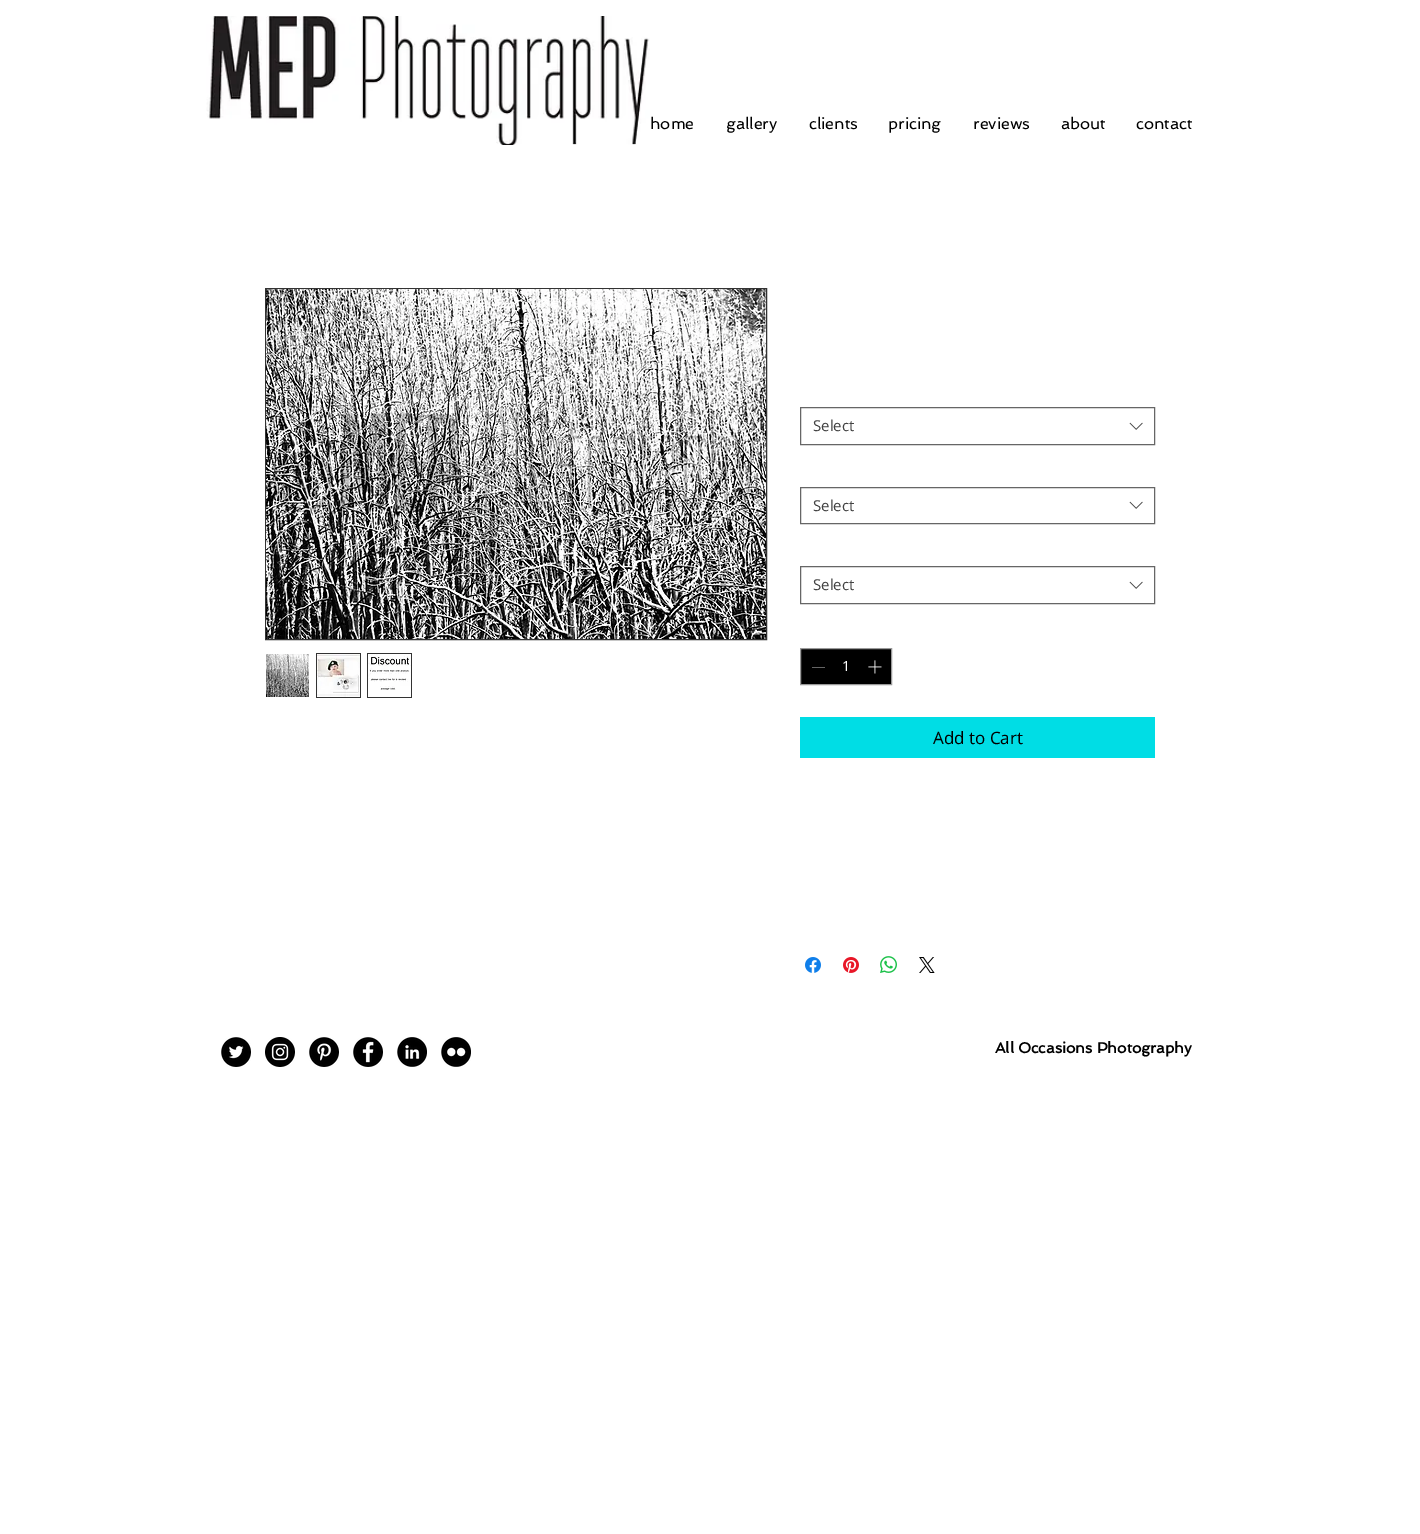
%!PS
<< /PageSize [1420 1534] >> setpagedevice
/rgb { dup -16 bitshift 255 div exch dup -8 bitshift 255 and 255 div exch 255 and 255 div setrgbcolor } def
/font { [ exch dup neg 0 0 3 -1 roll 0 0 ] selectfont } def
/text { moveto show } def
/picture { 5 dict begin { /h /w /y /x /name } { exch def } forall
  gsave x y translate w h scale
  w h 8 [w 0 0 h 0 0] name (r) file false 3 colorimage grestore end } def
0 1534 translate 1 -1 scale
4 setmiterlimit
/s1 { /Spinnaker-Regular 16 font 16#000000 rgb } def
/s2 { /OpenSans-Regular 15 font 16#444444 rgb } def
/s3 { /OpenSans-Regular 14 font 16#FFFFFF rgb } def
/s4 { /OpenSans-Regular 17 font 16#000000 rgb } def
/s5 { /Spinnaker-Bold 15 font 16#000000 rgb } def
16#FFFFFF rgb
0 0 1420 1534 rectfill
(pic1.raw) 206 16 444 129 picture
s1
(home) 650 129 text
(gallery) 726 129 text
(clients) 809 129 text
(pricing) 888 129 text
(reviews) 973 129 text
(about) 1061 129 text
(contact) 1136 129 text
16#333333 rgb
265.5 288.5 501 351 rectstroke
(pic2.raw) 266 289 500 350 picture
(pic3.raw) 266 654 43 43 picture
316 653 45 45 rectfill
(pic4.raw) 317 654 43 43 picture
367 653 45 45 rectfill
(pic5.raw) 368 654 43 43 picture
16#666666 rgb
800.5 407.5 354 37 rectstroke
s2
(Select) 813 431 text
(pic6.raw) 1129 422 14 8 picture
16#666666 rgb
800.5 487.5 354 36 rectstroke
s2
(Select) 813 511 text
(pic6.raw) 1129 501 14 8 picture
16#666666 rgb
800.5 566.5 354 37 rectstroke
s2
(Select) 813 590 text
(pic6.raw) 1129 581 14 8 picture
16#000000 rgb
800.5 648.5 moveto 891.5 648.5 lineto 891.5 684.5 lineto 800.5 684.5 lineto closepath gsave fill grestore
16#999999 rgb
stroke
16#646464 rgb
812 667 13 1 rectfill
s3
(1) 842 671 text
(pic7.raw) 868 660 14 14 picture
16#00DDE5 rgb
800 717 355 41 rectfill
s4
(Add to Cart) 933 744 text
(pic8.raw) 805 957 16 16 picture
(pic9.raw) 843 957 16 16 picture
(pic10.raw) 880 956 17 17 picture
(pic11.raw) 919 957 16 16 picture
(pic12.raw) 221 1037 30 30 picture
(pic13.raw) 265 1037 30 30 picture
(pic14.raw) 309 1037 30 30 picture
(pic15.raw) 353 1037 30 30 picture
(pic16.raw) 397 1037 30 30 picture
(pic17.raw) 441 1037 30 30 picture
s5
(All Occasions Photography) 995 1053 text
showpage
